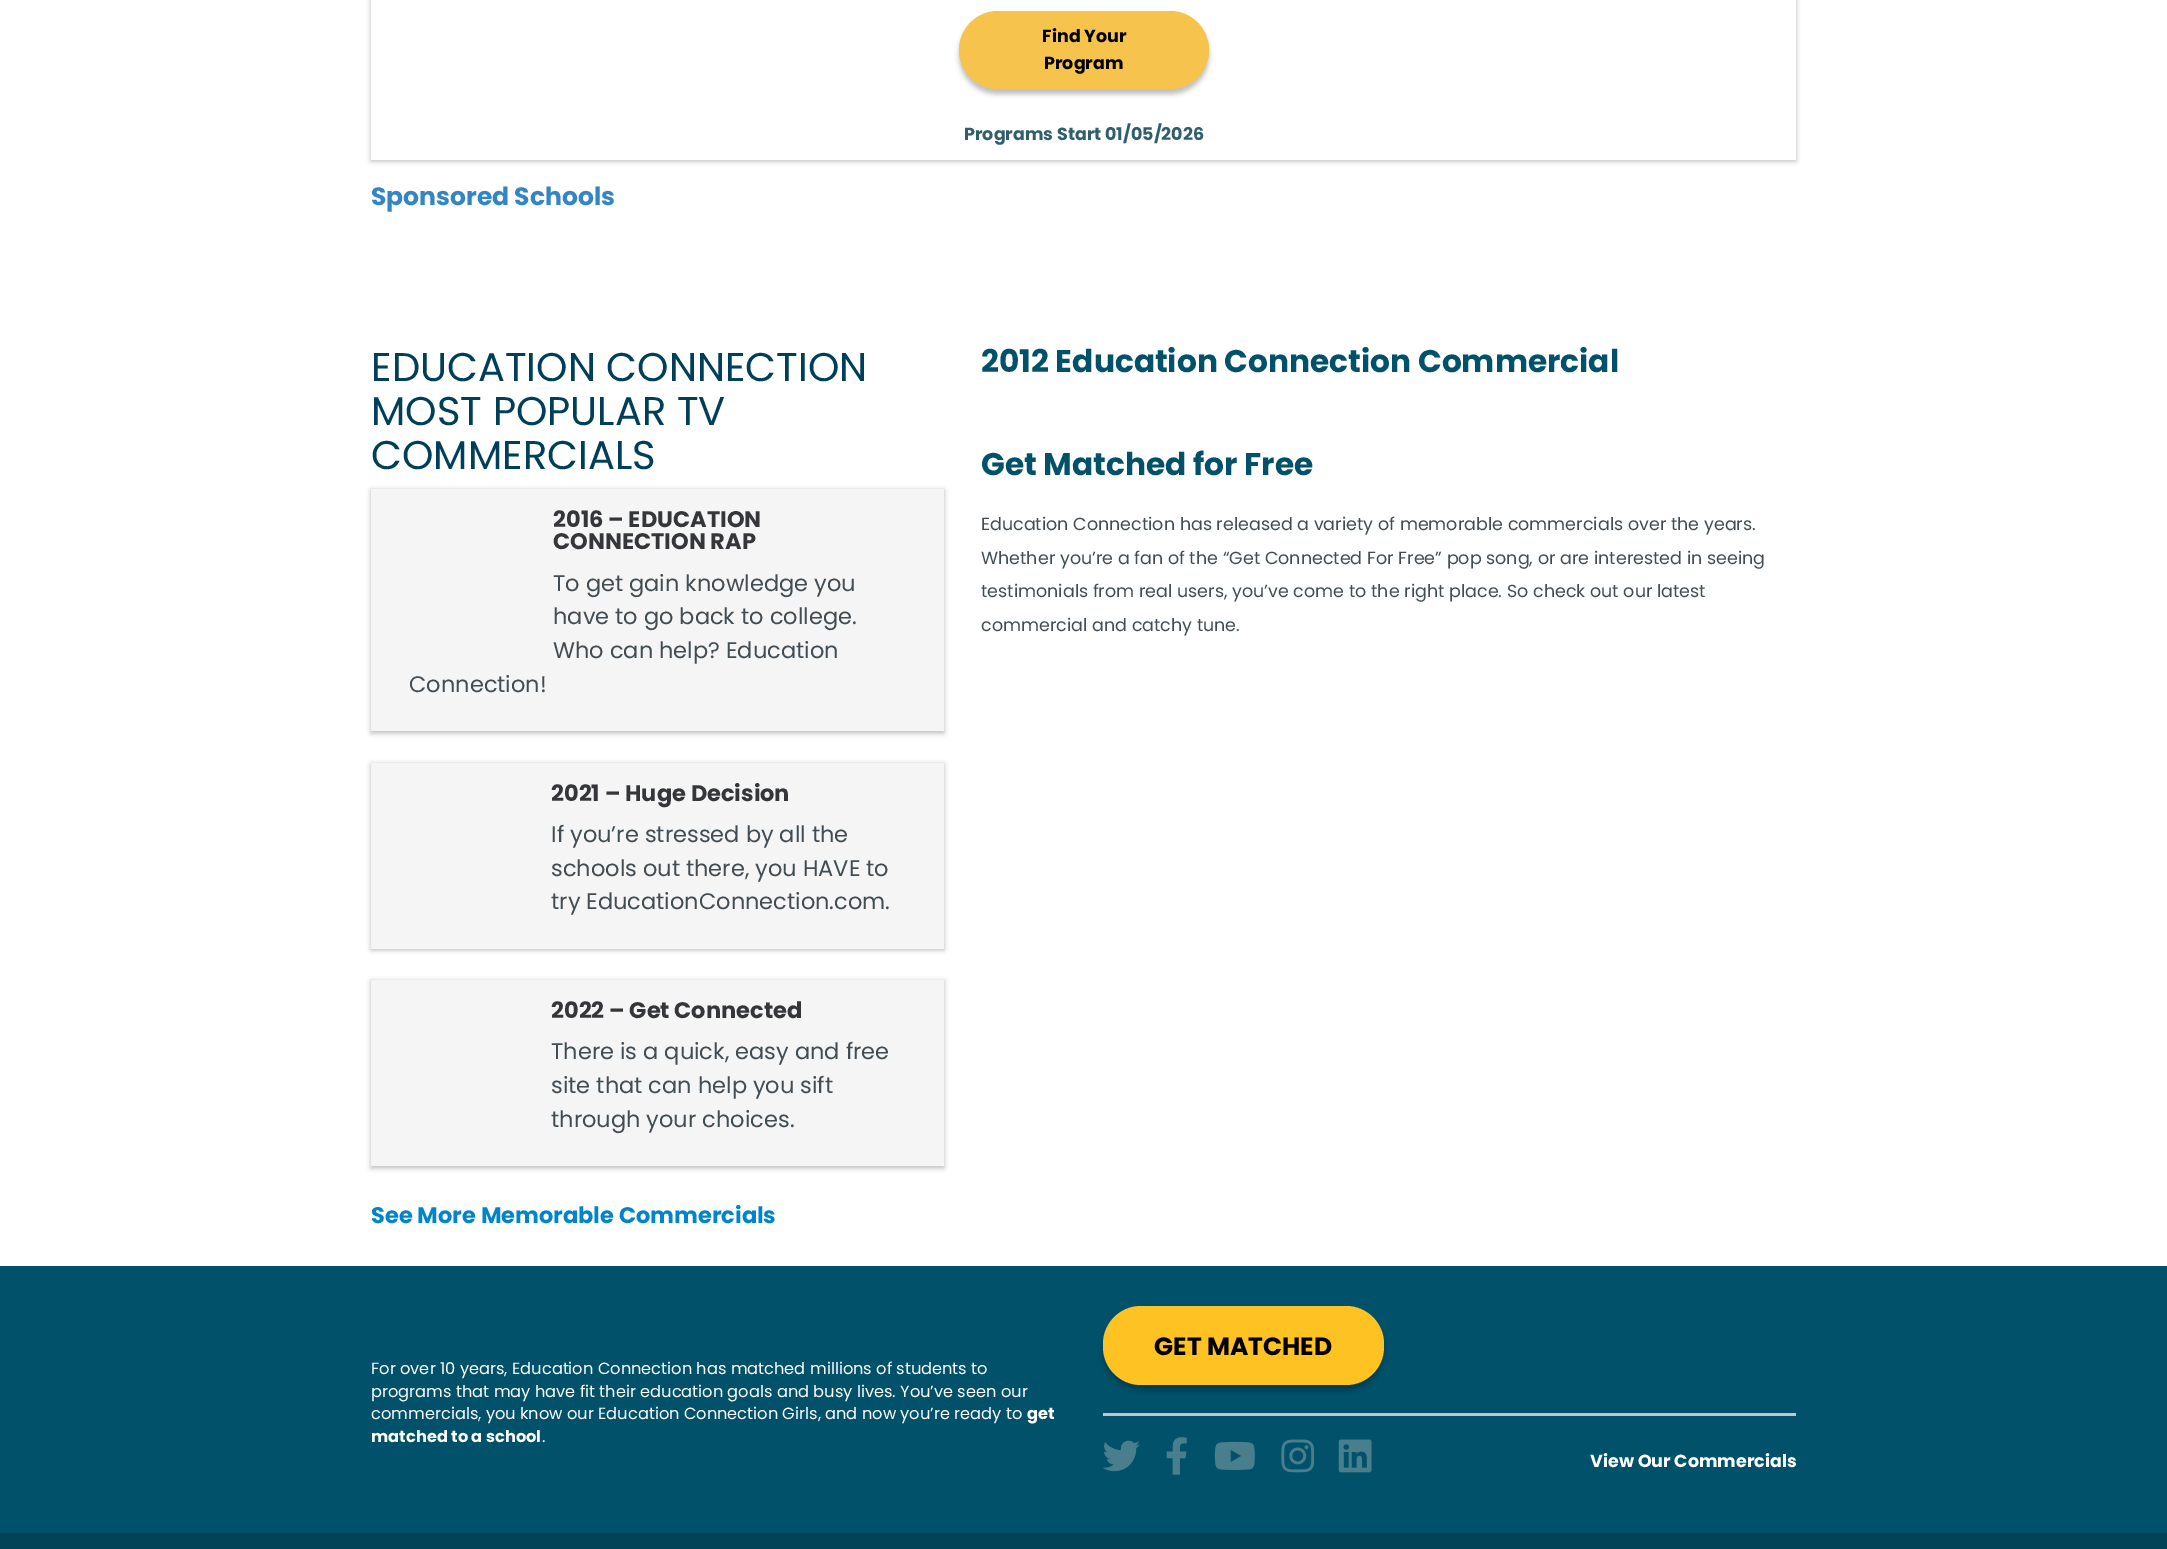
%!PS
<< /PageSize [2167 1549] /PageUsesTransparency true >> setpagedevice
/rgb { dup -16 bitshift 255 div exch dup -8 bitshift 255 and 255 div exch 255 and 255 div setrgbcolor } def
/font { [ exch dup neg 0 0 3 -1 roll 0 0 ] selectfont } def
/text { moveto show } def
/alpha { dup .setfillconstantalpha .setstrokeconstantalpha } def
/roundrect { 5 dict begin { /r /h /w /y /x } { exch def } forall
  x r add y moveto x w add y 2 copy h add r arct x w add y h add x 1 index r arct
  x y h add x y r arct x y 2 copy exch w add exch r arct closepath end } def
/shadow { 12 dict begin { /a /b /q /h /w /y /x } { exch def } forall gsave /was 0 def
  9 -2 -9 { dup b mul 4 div /e exch def 1 sub .425 mul 2.718 exch exp 1 add a .99 .min exch div /now exch def
    1 1 now sub 1 was sub div sub alpha /was now def
    w h .min e 2 mul add 0 gt { x e sub y e sub w e 2 mul add h e 2 mul add
      q e add b .6 mul add w h .min 2 div e add .min 0 .max roundrect fill } if } for grestore end } def
/picture { 5 dict begin { /h /w /y /x /name } { exch def } forall
  gsave x y translate w h scale
  w h 8 [w 0 0 h 0 0] name (r) file false 3 colorimage grestore end } def
0 .pushpdf14devicefilter
0 1549 translate 1 -1 scale
4 setmiterlimit
/s1 { /Poppins-Bold 17.5 font 16#000000 rgb } def
/s2 { /Poppins-Bold 17.5 font 16#315E6D rgb } def
/s3 { /Poppins-Bold 25 font 16#3485C5 rgb } def
/s4 { /Poppins-Regular 40 font 16#003F59 rgb } def
/s5 { /Poppins-Bold 22.5 font 16#34363A rgb } def
/s6 { /Poppins-Regular 22.5 font 16#414D53 rgb } def
/s7 { /Poppins-Bold 22.5 font 16#0085CA rgb } def
/s8 { /Poppins-Bold 31.25 font 16#005169 rgb } def
/s9 { /Poppins-Regular 17.5 font 16#414D53 rgb } def
/s10 { /Poppins-Regular 16.25 font 16#FFFFFF rgb } def
/s11 { /Poppins-Bold 16.25 font 16#FFFFFF rgb } def
/s12 { /Poppins-Bold 25 font 16#000000 rgb } def
/s13 { /Poppins-Bold 17.5 font 16#FFFFFF rgb } def
16#FFFFFF rgb
0 0 2167 1549 rectfill
16#000000 rgb
371 -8 1425 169 0 2.5 0.26 shadow
16#FFFFFF rgb
371 0 1425 160 rectfill
16#000000 rgb
959 16 250 78 39 2.5 0.25 shadow
16#F6C34C rgb
959 11 250 78 39 roundrect fill
s1
(Find Your) 1042 42 text
(Program) 1044 69 text
s2
(Programs Start 01/05/2026) 964 140 text
s3
(Sponsored Schools) 371 205 text
s4
(EDUCATION CONNECTION) 371 381 text
(MOST POPULAR TV) 371 425 text
(COMMERCIALS) 371 469 text
16#000000 rgb
371 490 573 243 0 2.5 0.26 shadow
16#F5F5F5 rgb
371 489 573 242 rectfill
s5
(2016 – EDUCATION) 553 527 text
(CONNECTION RAP) 553 549 text
s6
(To get gain knowledge you) 553 591 text
(have to go back to college.) 553 624 text
(Who can help? Education) 553 658 text
(Connection!) 409 692 text
16#000000 rgb
371 764 573 186 0 2.5 0.26 shadow
16#F5F5F5 rgb
371 763 573 186 rectfill
s5
(2021 – Huge Decision) 551 801 text
s6
(If you’re stressed by all the) 551 842 text
(schools out there, you HAVE to) 551 876 text
(try EducationConnection.com.) 551 909 text
16#000000 rgb
371 981 573 187 0 2.5 0.26 shadow
16#F5F5F5 rgb
371 980 573 186 rectfill
s5
(2022 – Get Connected) 551 1018 text
s6
(There is a quick, easy and free) 551 1059 text
(site that can help you sift) 551 1093 text
(through your choices.) 551 1127 text
s7
(See More Memorable Commercials) 371 1223 text
s8
(2012 Education Connection Commercial) 981 372 text
(Get Matched for Free) 981 475 text
s9
(Education Connection has released a variety of memorable commercials over the years.) 981 530 text
(Whether you’re a fan of the “Get Connected For Free” pop song, or are interested in seeing) 981 564 text
(testimonials from real users, you’ve come to the right place. So check out our latest) 981 597 text
(commercial and catchy tune.) 981 631 text
16#005169 rgb
0 1266 2167 267 rectfill
s10
(For over 10 years, Education Connection has matched millions of students to) 371 1374 text
(programs that may have fit their education goals and busy lives. You’ve seen our) 371 1397 text
(commercials, you know our Education Connection Girls, and now you’re ready to) 371 1419 text
s11
(get) 1027 1419 text
(matched to a school) 371 1442 text
s10
(.) 542 1442 text
16#000000 rgb
1103 1311 281 79 38 2.5 0.25 shadow
16#FEC223 rgb
1103 1306 281 79 38 roundrect fill
s12
(GET MATCHED) 1154 1355 text
16#C2C6C9 rgb
1103 1413 693 3 rectfill
(pic1.raw) 1102 1440 38 32 picture
(pic2.raw) 1166 1437 21 38 picture
(pic3.raw) 1214 1441 41 29 picture
(pic4.raw) 1281 1439 34 34 picture
(pic5.raw) 1338 1439 34 34 picture
s13
(View Our Commercials) 1590 1467 text
16#034358 rgb
0 1533 2167 16 rectfill
.poppdf14devicefilter showpage
